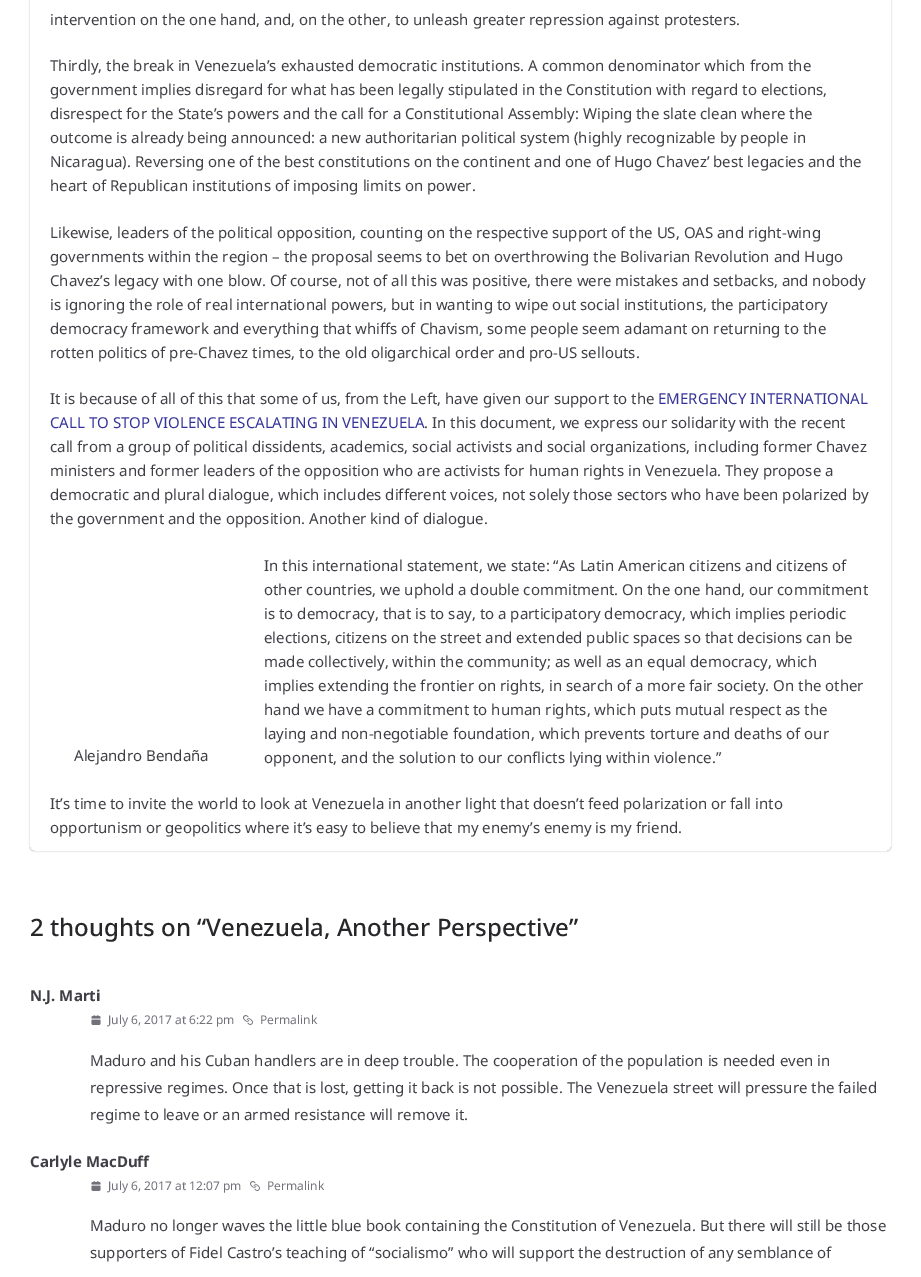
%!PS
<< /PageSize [921 1277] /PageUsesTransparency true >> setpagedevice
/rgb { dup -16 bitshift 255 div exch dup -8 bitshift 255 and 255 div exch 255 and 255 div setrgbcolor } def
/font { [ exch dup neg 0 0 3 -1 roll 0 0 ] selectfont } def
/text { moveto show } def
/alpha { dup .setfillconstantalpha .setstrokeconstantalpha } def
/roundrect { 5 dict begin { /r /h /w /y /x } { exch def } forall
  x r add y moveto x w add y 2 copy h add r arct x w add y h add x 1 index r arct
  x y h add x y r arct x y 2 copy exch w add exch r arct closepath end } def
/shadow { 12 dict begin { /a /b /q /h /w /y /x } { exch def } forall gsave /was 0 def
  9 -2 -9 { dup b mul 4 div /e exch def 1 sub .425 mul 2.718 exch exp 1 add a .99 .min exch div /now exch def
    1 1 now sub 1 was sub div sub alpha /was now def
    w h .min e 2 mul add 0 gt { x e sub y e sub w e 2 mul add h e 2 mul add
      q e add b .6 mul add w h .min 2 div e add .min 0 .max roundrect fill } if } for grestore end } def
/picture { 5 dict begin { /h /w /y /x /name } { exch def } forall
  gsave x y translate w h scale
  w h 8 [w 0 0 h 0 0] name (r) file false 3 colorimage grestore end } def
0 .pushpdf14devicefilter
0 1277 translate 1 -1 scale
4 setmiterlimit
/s1 { /NotoSans-Regular 15 font 16#3F3F46 rgb } def
/s2 { /NotoSans-Regular 15 font 16#333399 rgb } def
/s3 { /NotoSans-Medium 24 font 16#27272A rgb } def
/s4 { /NotoSans-Bold 15 font 16#3F3F46 rgb } def
/s5 { /NotoSans-Regular 12 font 16#71717A rgb } def
16#FFFFFF rgb
0 0 921 1277 rectfill
gsave
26 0 moveto 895 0 lineto 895 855 lineto 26 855 lineto closepath 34 -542 moveto 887 -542 lineto 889 -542 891 -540 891 -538 curveto 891 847 lineto 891 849 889 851 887 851 curveto 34 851 lineto 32 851 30 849 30 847 curveto 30 -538 lineto 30 -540 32 -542 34 -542 curveto closepath eoclip newpath
16#000000 rgb
30 -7 861 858 4 1 0.24 shadow
grestore
s1
(intervention on the one hand, and, on the other, to unleash greater repression against protesters.) 50 25 text
(Thirdly, the break in Venezuela’s exhausted democratic institutions. A common denominator which from the) 50 71 text
(government implies disregard for what has been legally stipulated in the Constitution with regard to elections,) 50 95 text
(disrespect for the State’s powers and the call for a Constitutional Assembly: Wiping the slate clean where the) 50 119 text
(outcome is already being announced: a new authoritarian political system \(highly recognizable by people in) 50 143 text
(Nicaragua\). Reversing one of the best constitutions on the continent and one of Hugo Chavez’ best legacies and the) 50 167 text
(heart of Republican institutions of imposing limits on power.) 50 191 text
(Likewise, leaders of the political opposition, counting on the respective support of the US, OAS and right-wing) 50 238 text
(governments within the region – the proposal seems to bet on overthrowing the Bolivarian Revolution and Hugo) 50 262 text
(Chavez’s legacy with one blow. Of course, not of all this was positive, there were mistakes and setbacks, and nobody) 50 286 text
(is ignoring the role of real international powers, but in wanting to wipe out social institutions, the participatory) 50 310 text
(democracy framework and everything that whiffs of Chavism, some people seem adamant on returning to the) 50 334 text
(rotten politics of pre-Chavez times, to the old oligarchical order and pro-US sellouts.) 50 358 text
(It is because of all of this that some of us, from the Left, have given our support to the) 50 404 text
s2
(EMERGENCY INTERNATIONAL) 658 404 text
(CALL TO STOP VIOLENCE ESCALATING IN VENEZUELA) 50 428 text
s1
(. In this document, we express our solidarity with the recent) 424 428 text
(call from a group of political dissidents, academics, social activists and social organizations, including former Chavez) 50 452 text
(ministers and former leaders of the opposition who are activists for human rights in Venezuela. They propose a) 50 476 text
(democratic and plural dialogue, which includes different voices, not solely those sectors who have been polarized by) 50 500 text
(the government and the opposition. Another kind of dialogue.) 50 524 text
(Alejandro Bendaña) 74 761 text
(In this international statement, we state: “As Latin American citizens and citizens of) 264 571 text
(other countries, we uphold a double commitment. On the one hand, our commitment) 264 595 text
(is to democracy, that is to say, to a participatory democracy, which implies periodic) 264 619 text
(elections, citizens on the street and extended public spaces so that decisions can be) 264 643 text
(made collectively, within the community; as well as an equal democracy, which) 264 667 text
(implies extending the frontier on rights, in search of a more fair society. On the other) 264 691 text
(hand we have a commitment to human rights, which puts mutual respect as the) 264 715 text
(laying and non-negotiable foundation, which prevents torture and deaths of our) 264 739 text
(opponent, and the solution to our conflicts lying within violence.”) 264 763 text
(It’s time to invite the world to look at Venezuela in another light that doesn’t feed polarization or fall into) 50 809 text
(opportunism or geopolitics where it’s easy to believe that my enemy’s enemy is my friend.) 50 833 text
s3
(2 thoughts on “Venezuela, Another Perspective”) 30 936 text
s4
(N.J. Marti) 30 1001 text
(pic1.raw) 91 1015 10 10 picture
s5
(July 6, 2017 at 6:22 pm) 108 1024 text
(pic2.raw) 243 1015 10 10 picture
(Permalink) 260 1024 text
s1
(Maduro and his Cuban handlers are in deep trouble. The cooperation of the population is needed even in) 90 1066 text
(repressive regimes. Once that is lost, getting it back is not possible. The Venezuela street will pressure the failed) 90 1093 text
(regime to leave or an armed resistance will remove it.) 90 1120 text
s4
(Carlyle MacDuff) 30 1167 text
(pic1.raw) 91 1181 10 10 picture
s5
(July 6, 2017 at 12:07 pm) 108 1190 text
(pic2.raw) 250 1181 10 10 picture
(Permalink) 267 1190 text
s1
(Maduro no longer waves the little blue book containing the Constitution of Venezuela. But there will still be those) 90 1231 text
(supporters of Fidel Castro’s teaching of “socialismo” who will support the destruction of any semblance of) 90 1258 text
.poppdf14devicefilter showpage
